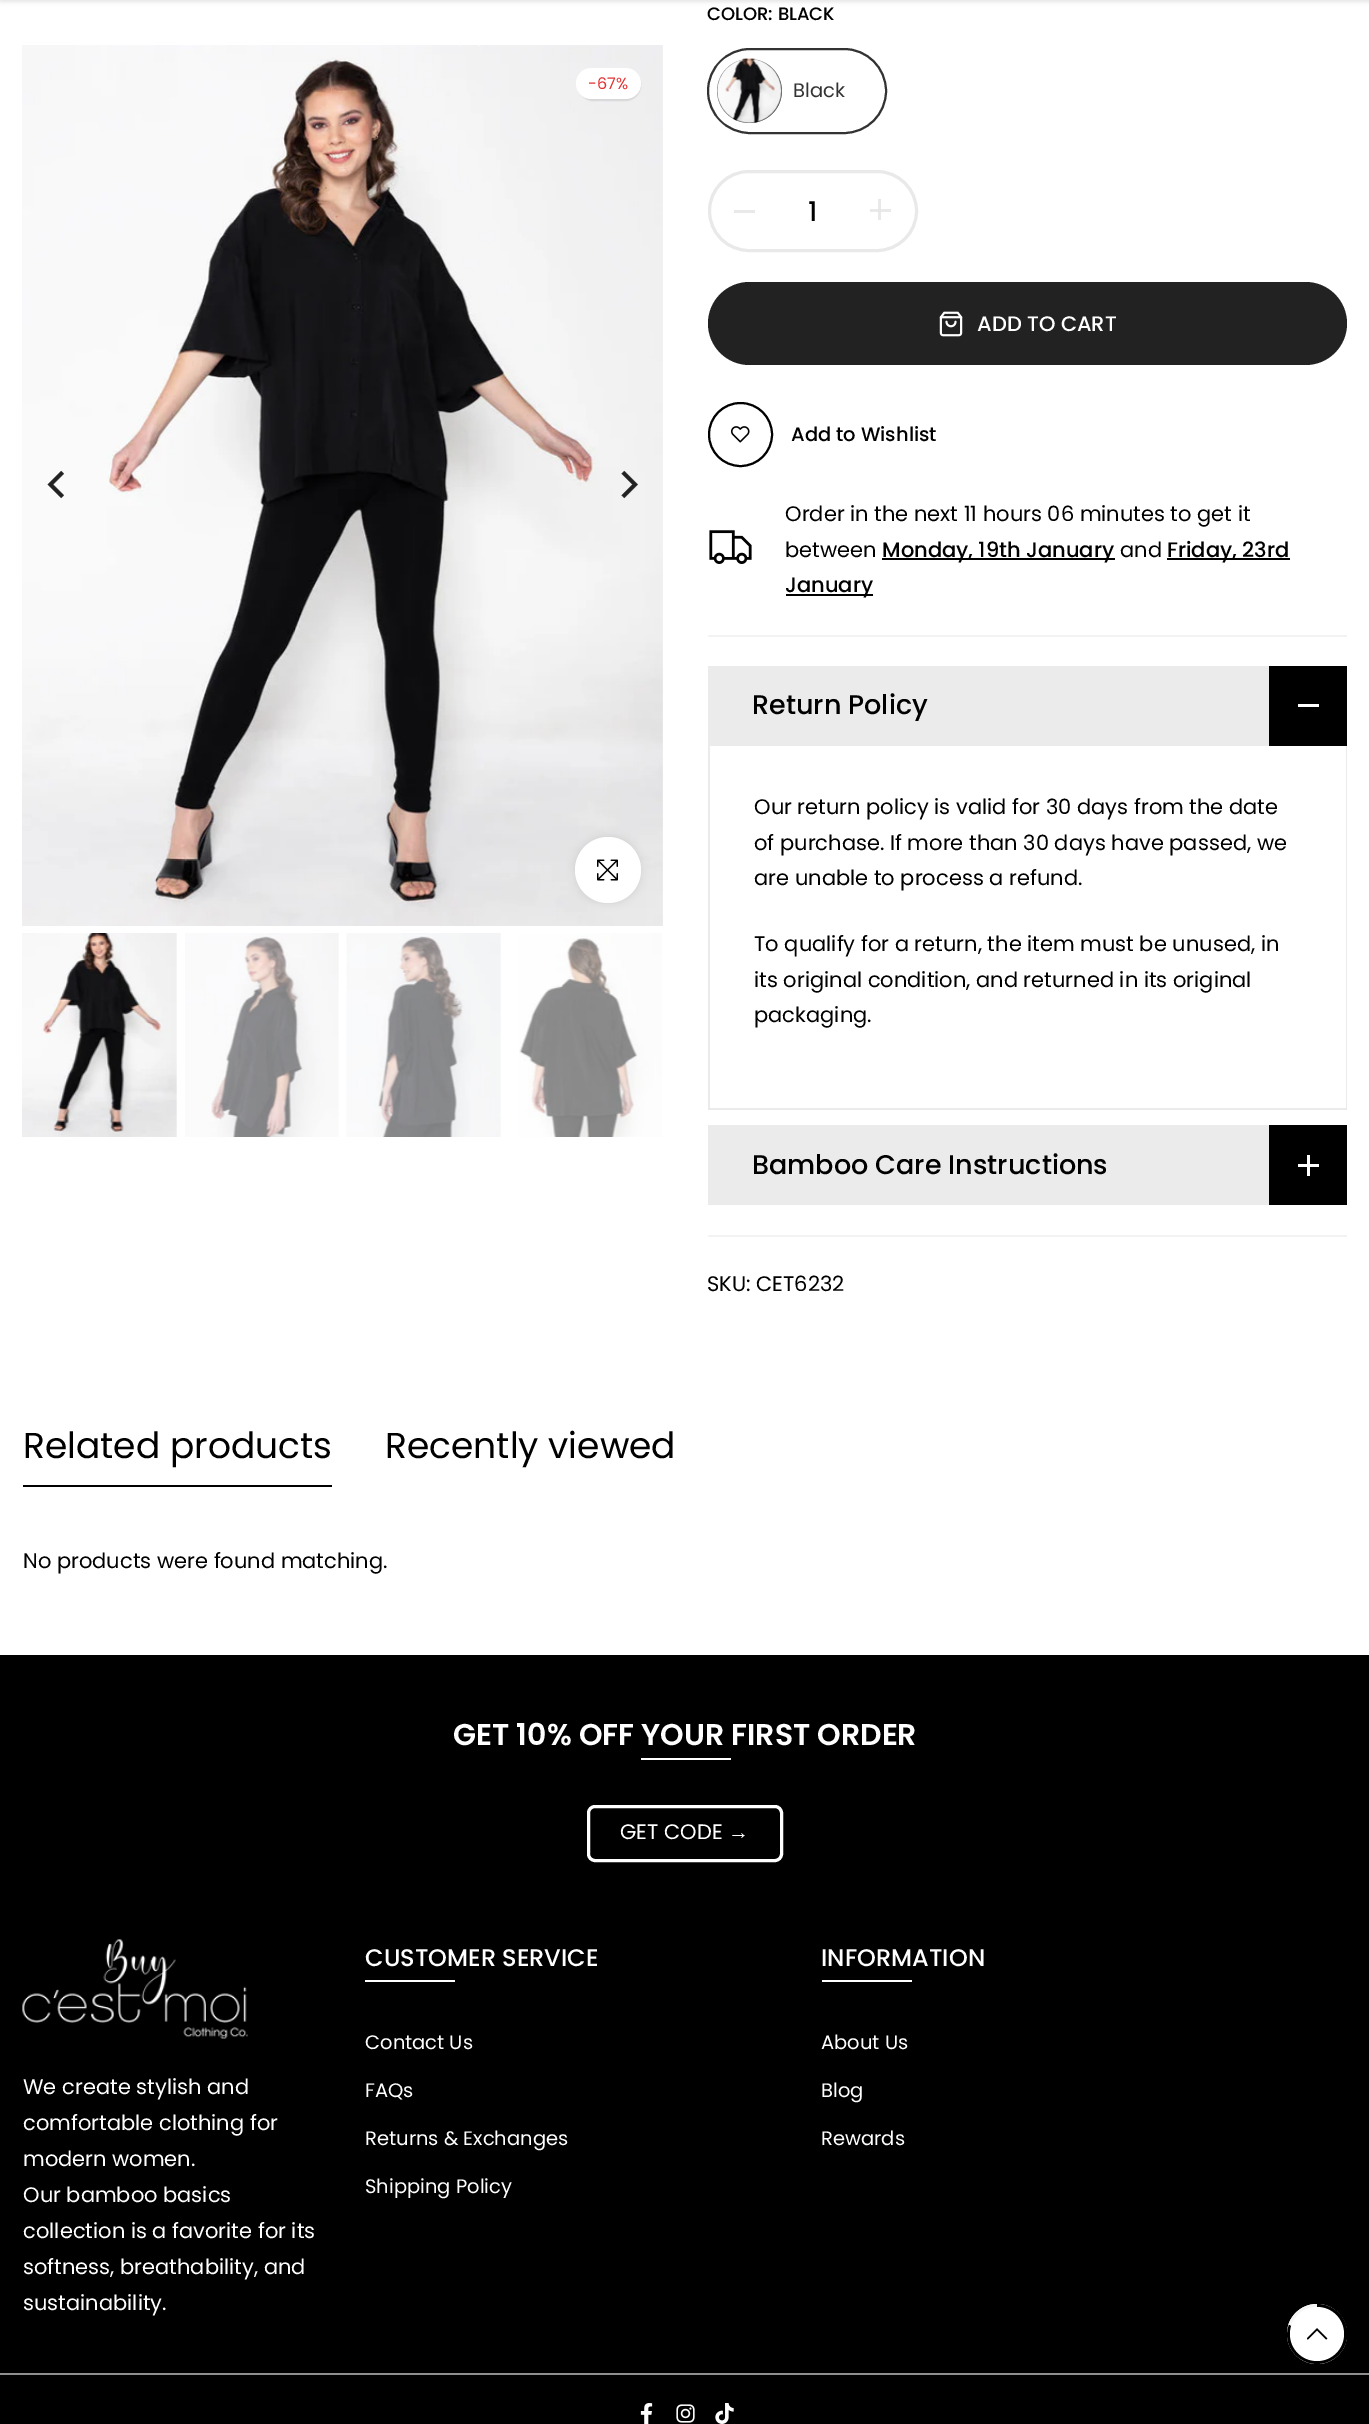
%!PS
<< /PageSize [1369 2424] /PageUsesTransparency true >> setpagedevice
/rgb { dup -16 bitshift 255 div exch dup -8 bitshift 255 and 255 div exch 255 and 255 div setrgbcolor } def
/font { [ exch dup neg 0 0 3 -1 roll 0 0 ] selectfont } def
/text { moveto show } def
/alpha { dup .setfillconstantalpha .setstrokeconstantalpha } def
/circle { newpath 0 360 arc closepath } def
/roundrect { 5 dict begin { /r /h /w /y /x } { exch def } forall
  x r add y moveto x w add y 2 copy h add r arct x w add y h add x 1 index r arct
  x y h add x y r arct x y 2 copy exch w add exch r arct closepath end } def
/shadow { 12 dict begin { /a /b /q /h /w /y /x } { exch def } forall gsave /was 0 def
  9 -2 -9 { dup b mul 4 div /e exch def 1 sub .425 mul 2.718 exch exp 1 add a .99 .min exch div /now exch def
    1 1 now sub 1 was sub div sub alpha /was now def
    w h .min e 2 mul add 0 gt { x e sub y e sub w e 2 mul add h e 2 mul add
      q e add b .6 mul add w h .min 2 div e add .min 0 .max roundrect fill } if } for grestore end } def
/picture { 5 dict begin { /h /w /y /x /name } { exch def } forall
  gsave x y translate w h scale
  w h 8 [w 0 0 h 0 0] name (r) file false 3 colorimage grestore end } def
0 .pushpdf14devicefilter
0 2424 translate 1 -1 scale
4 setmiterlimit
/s1 { /Poppins-Regular 16 font 16#E33131 rgb } def
/s2 { /Poppins-Medium 18 font 16#000000 rgb } def
/s3 { /Poppins-Regular 19.5 font 16#333333 rgb } def
/s4 { /Poppins-Medium 27 font 16#000000 rgb } def
/s5 { /Poppins-Medium 21 font 16#FFFFFF rgb } def
/s6 { /Poppins-Medium 19.5 font 16#000000 rgb } def
/s7 { /Poppins-Regular 21 font 16#000000 rgb } def
/s8 { /Poppins-Medium 21 font 16#000000 rgb } def
/s9 { /Poppins-Regular 36 font 16#000000 rgb } def
/s10 { /Poppins-SemiBold 30 font 16#FFFFFF rgb } def
/s11 { /Poppins-Regular 21 font 16#FFFFFF rgb } def
/s12 { /LiberationSans-Regular 21 font 16#FFFFFF rgb } def
/s13 { /Poppins-Medium 24 font 16#FFFFFF rgb } def
/s14 { /Poppins-Regular 19.5 font 16#FFFFFF rgb } def
16#FFFFFF rgb
0 0 1369 2424 rectfill
16#E9E9E9 rgb
878 199 3 21 rectfill
16#000000 rgb
0 -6 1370 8 0 2 0.1 shadow
(pic1.raw) 22 45 641 881 picture
(pic2.raw) 47 470 17 29 picture
(pic3.raw) 621 470 17 29 picture
578 69 63 32 16 0.5 0.1 shadow
16#FFFFFF rgb
576 68 65 31 15.5 roundrect fill
s1
(-67%) 588 89 text
16#000000 rgb
575 837 66 66 33 4 0.09 shadow
16#FFFFFF rgb
608 870 33 circle fill
(pic4.raw) 597 859 21 22 picture
(pic5.raw) 22 933 155 204 picture
(pic6.raw) 185 933 154 204 picture
(pic7.raw) 346 933 155 204 picture
(pic8.raw) 519 933 143 204 picture
s2
(COLOR: BLACK) 707 20 text
16#333333 rgb
2 setlinewidth
708 49 178 84 42 roundrect stroke
16#000000 rgb
717 59 65 64 32 roundrect fill
(pic9.raw) 717 58 65 66 picture
s3
(Black) 793 97 text
16#E9E9E9 rgb
3 setlinewidth
709.5 171.5 207 79 39.5 roundrect stroke
734 210 21 3 rectfill
s4
(1) 808 221 text
16#E9E9E9 rgb
870 209 21 3 rectfill
16#E6E6E6 rgb
878 209 3 3 rectfill
16#222222 rgb
708 282 639 83 41.5 roundrect fill
(pic10.raw) 939 311 24 26 picture
s5
(ADD TO CART) 977 331 text
16#000000 rgb
2 setlinewidth
740.5 434.5 31.5 circle stroke
(pic11.raw) 730 426 20 17 picture
s6
(Add to Wishlist) 791 441 text
(pic12.raw) 709 530 43 34 picture
s7
(Order in the next 11 hours 06 minutes to get it) 785 521 text
(between) 785 557 text
882 558 233 2 rectfill
s8
(Monday, 19th January) 882 557 text
s7
(and) 1120 557 text
1167 558 123 2 rectfill
s8
(Friday, 23rd) 1167 557 text
786 594 87 2 rectfill
(January) 785 592 text
16#F3F3F3 rgb
708 635 639 2 rectfill
708 1235 639 2 rectfill
16#EBEBEB rgb
708 666 561 80 rectfill
s4
(Return Policy) 752 714 text
1269 666 78 80 rectfill
16#FFFFFF rgb
1298 704 21 3 rectfill
16#EBEBEB rgb
1347 746 moveto 1347 1110 lineto 1346 1108 lineto 1346 746 lineto closepath fill
0.08 alpha
16#000000 rgb
1347 1110 moveto 708 1110 lineto 710 1108 lineto 1346 1108 lineto closepath fill
708 1110 moveto 708 746 lineto 710 746 lineto 710 1108 lineto closepath fill
1 alpha
s7
(Our return policy is valid for 30 days from the date) 754 814 text
(of purchase. If more than 30 days have passed, we) 754 850 text
(are unable to process a refund.) 754 885 text
(To qualify for a return, the item must be unused, in) 754 951 text
(its original condition, and returned in its original) 754 987 text
(packaging.) 754 1022 text
16#EBEBEB rgb
708 1125 561 80 rectfill
s4
(Bamboo Care Instructions) 752 1174 text
1269 1125 78 80 rectfill
16#FFFFFF rgb
1307 1155 3 21 rectfill
1298 1164 21 3 rectfill
s7
(SKU: CET6232) 707 1291 text
s9
(Related products) 23 1458 text
23 1485 309 2 rectfill
(Recently viewed) 385 1458 text
s7
(No products were found matching.) 23 1568 text
0 1655 1369 718 rectfill
s10
(GET 10% OFF YOUR FIRST ORDER) 453 1745 text
641 1758 90 2 rectfill
3 setlinewidth
588.5 1806.5 193 54 6.5 roundrect stroke
s11
(GET CODE) 620 1839 text
s12
(→) 728 1839 text
s13
(CUSTOMER SERVICE) 365 1966 text
365 1980 90 2 rectfill
s14
(Contact Us) 365 2049 text
(FAQs) 365 2097 text
(Returns & Exchanges) 365 2145 text
(Shipping Policy) 365 2193 text
s13
(INFORMATION) 821 1966 text
822 1980 90 2 rectfill
s14
(About Us) 821 2049 text
(Blog) 821 2097 text
(Rewards) 821 2145 text
(pic13.raw) 22 1939 226 100 picture
s11
(We create stylish and) 23 2094 text
(comfortable clothing for) 23 2130 text
(modern women.) 23 2166 text
(Our bamboo basics) 23 2202 text
(collection is a favorite for its) 23 2238 text
(softness, breathability, and) 23 2274 text
(sustainability.) 23 2310 text
16#000000 rgb
0 2375 1369 49 rectfill
16#8E8E8E rgb
0 2373 1369 2 rectfill
(pic14.raw) 640 2403 13 21 picture
(pic15.raw) 676 2404 19 19 picture
(pic16.raw) 715 2403 19 21 picture
16#FFFFFF rgb
2.2 setlinewidth
480 24 moveto 459 45 lineto 480 45 moveto 459 24 lineto stroke
1317 2334 30 circle fill
16#000000 rgb
1317 2334 moveto 1317 2304 lineto 1330 2304 1342 2312 1346 2325 curveto 1350 2337 1345 2351 1335 2358 curveto 1324 2366 1310 2366 1299 2358 curveto 1289 2351 1284 2337 1289 2325 curveto closepath fill
16#F5F5F5 rgb
1317 2334 moveto 1288.5 2324.5 lineto 1292.5 2312.5 1304 2304 1317 2304 curveto closepath fill
16#FFFFFF rgb
1317 2334 27 circle fill
(pic17.raw) 1307 2328 21 12 picture
.poppdf14devicefilter showpage
